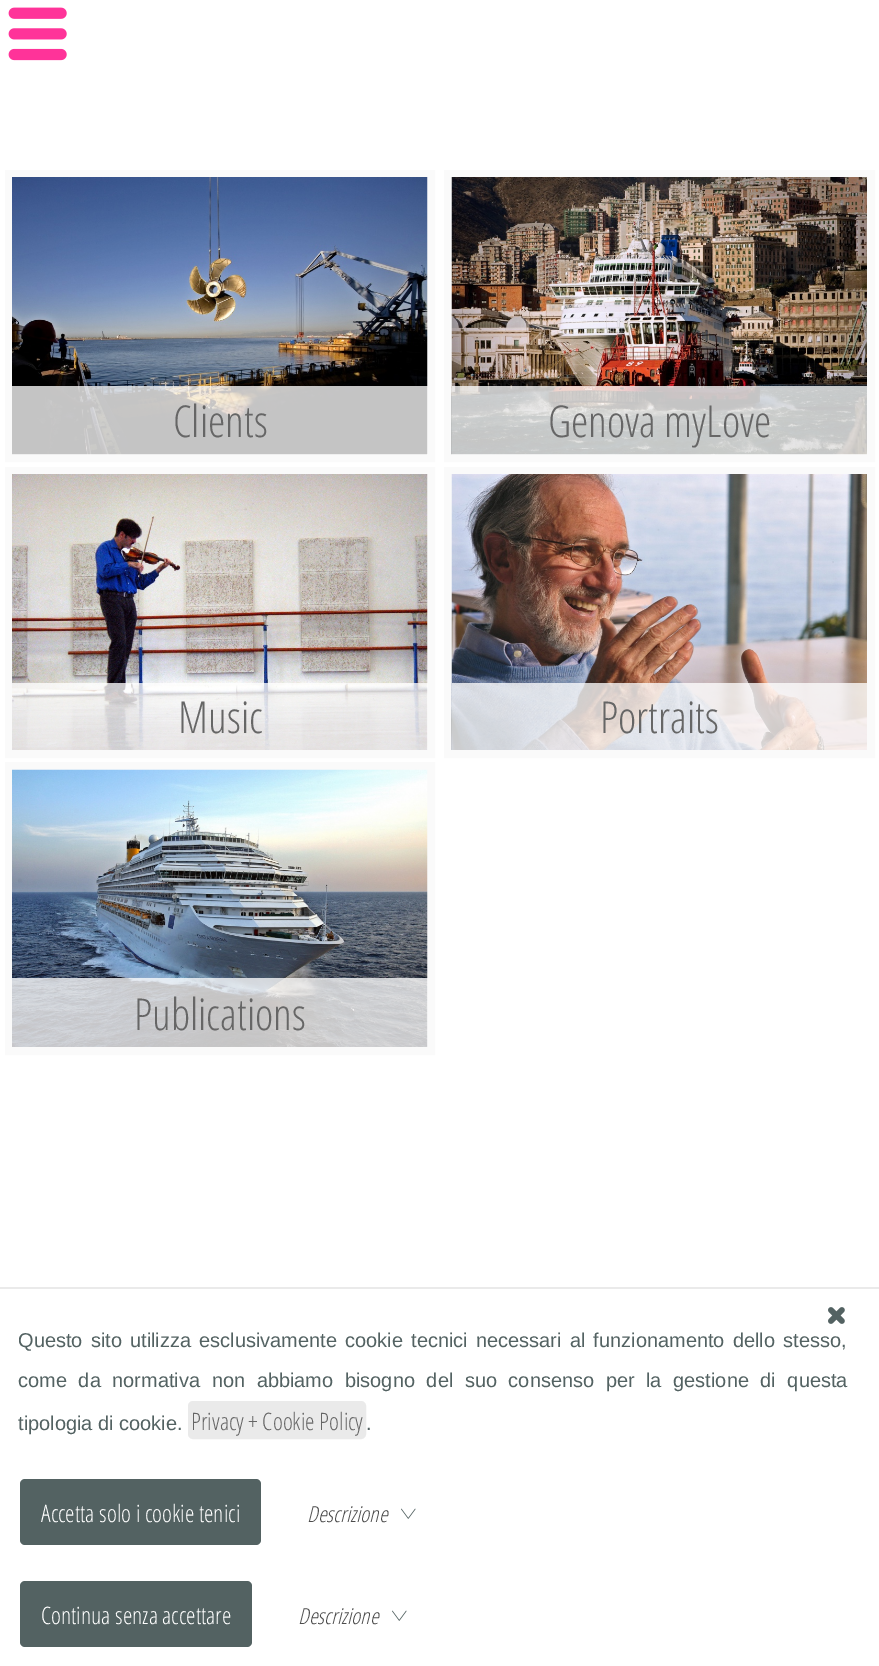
%!PS
<< /PageSize [879 1666] /PageUsesTransparency true >> setpagedevice
/rgb { dup -16 bitshift 255 div exch dup -8 bitshift 255 and 255 div exch 255 and 255 div setrgbcolor } def
/font { [ exch dup neg 0 0 3 -1 roll 0 0 ] selectfont } def
/text { moveto show } def
/alpha { dup .setfillconstantalpha .setstrokeconstantalpha } def
/roundrect { 5 dict begin { /r /h /w /y /x } { exch def } forall
  x r add y moveto x w add y 2 copy h add r arct x w add y h add x 1 index r arct
  x y h add x y r arct x y 2 copy exch w add exch r arct closepath end } def
/picture { 5 dict begin { /h /w /y /x /name } { exch def } forall
  gsave x y translate w h scale
  w h 8 [w 0 0 h 0 0] name (r) file false 3 colorimage grestore end } def
0 .pushpdf14devicefilter
0 1666 translate 1 -1 scale
4 setmiterlimit
/s1 { /OpenSans-Light 44 font 16#666666 rgb } def
/s2 { /LiberationSans-Regular 20 font 16#536262 rgb } def
/s3 { /OpenSans-Light 24 font 16#666666 rgb } def
/s4 { /OpenSans-Light 24 font 16#FFFFFF rgb } def
/s5 { /OpenSans-LightItalic 22 font 16#4C4C4C rgb } def
16#FFFFFF rgb
0 0 879 1666 rectfill
(pic1.raw) 8 7 59 54 picture
16#FAFAFA rgb
8 setlinewidth
9 174 422 284 rectstroke
(pic2.raw) 12 177 416 278 picture
0.77 alpha
16#FFFFFF rgb
12 386 416 69 rectfill
1 alpha
s1
(Clients) 173 437 text
16#FAFAFA rgb
9 471 422 283 rectstroke
(pic3.raw) 12 474 416 276 picture
0.77 alpha
16#FFFFFF rgb
12 683 416 67 rectfill
1 alpha
s1
(Music) 178 733 text
16#FAFAFA rgb
9 766 422 285 rectstroke
(pic4.raw) 12 769 416 278 picture
0.77 alpha
16#FFFFFF rgb
12 978 416 69 rectfill
1 alpha
s1
(Publications) 134 1030 text
16#FAFAFA rgb
448 174 423 284 rectstroke
(pic5.raw) 451 177 416 278 picture
0.77 alpha
16#FFFFFF rgb
452 386 415 69 rectfill
1 alpha
s1
(Genova myLove) 548 437 text
16#FAFAFA rgb
448 471 423 283 rectstroke
(pic6.raw) 451 474 416 276 picture
0.77 alpha
16#FFFFFF rgb
452 683 415 67 rectfill
1 alpha
s1
(Portraits) 600 733 text
16#EAEAEA rgb
0 1287 879 2 rectfill
(pic7.raw) 828 1307 17 17 picture
/LiberationSans-Regular 20 font
16#536262 rgb
18 1347 moveto 2.6 0 32 (Questo sito utilizza esclusivamente cookie tecnici necessari al funzionamento dello stesso,) widthshow
18 1387 moveto 6 0 32 (come da normativa non abbiamo bisogno del suo consenso per la gestione di questa) widthshow
(tipologia di cookie.) 18 1430 text
16#EAEAEA rgb
189 1402 176 36 4 roundrect gsave fill grestore
2 setlinewidth
stroke
s3
(Privacy + Cookie Policy) 191 1430 text
s2
(.) 366 1430 text
20 1479 241 66 5 roundrect fill
s4
(Accetta solo i cookie tenici) 41 1522 text
s5
(Descrizione) 307 1522 text
(pic8.raw) 401 1508 15 11 picture
16#536262 rgb
20 1581 232 66 5 roundrect fill
s4
(Continua senza accettare) 41 1624 text
s5
(Descrizione) 298 1624 text
(pic8.raw) 392 1610 15 11 picture
.poppdf14devicefilter showpage
